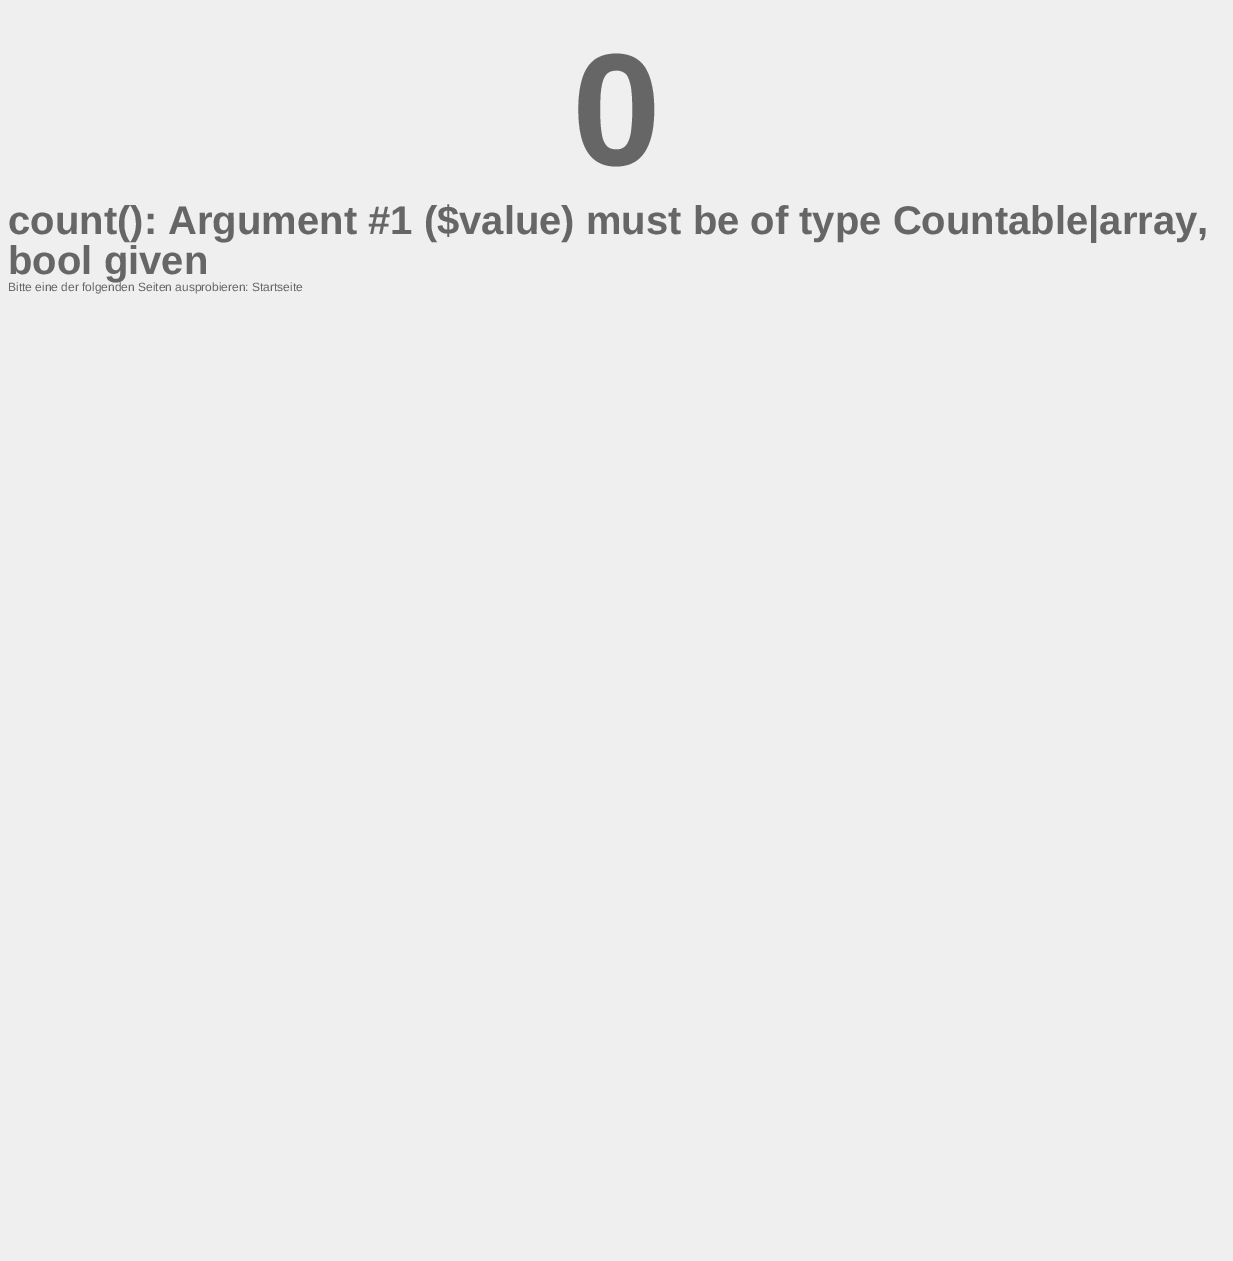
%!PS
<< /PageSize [1233 1261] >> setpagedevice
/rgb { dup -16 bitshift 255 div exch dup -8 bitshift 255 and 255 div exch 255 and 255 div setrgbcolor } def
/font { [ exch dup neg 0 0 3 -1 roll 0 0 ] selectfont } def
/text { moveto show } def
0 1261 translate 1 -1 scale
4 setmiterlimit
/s1 { /LiberationSans-Bold 160 font 16#666666 rgb } def
/s2 { /LiberationSans-Bold 40 font 16#666666 rgb } def
/s3 { /LiberationSans-Regular 12 font 16#666666 rgb } def
16#EFEFEF rgb
0 0 1233 1261 rectfill
s1
(0) 572 165 text
s2
(count\(\): Argument #1 \($value\) must be of type Countable|array,) 8 234 text
(bool given) 8 274 text
s3
(Bitte eine der folgenden Seiten ausprobieren: Startseite) 8 291 text
showpage
